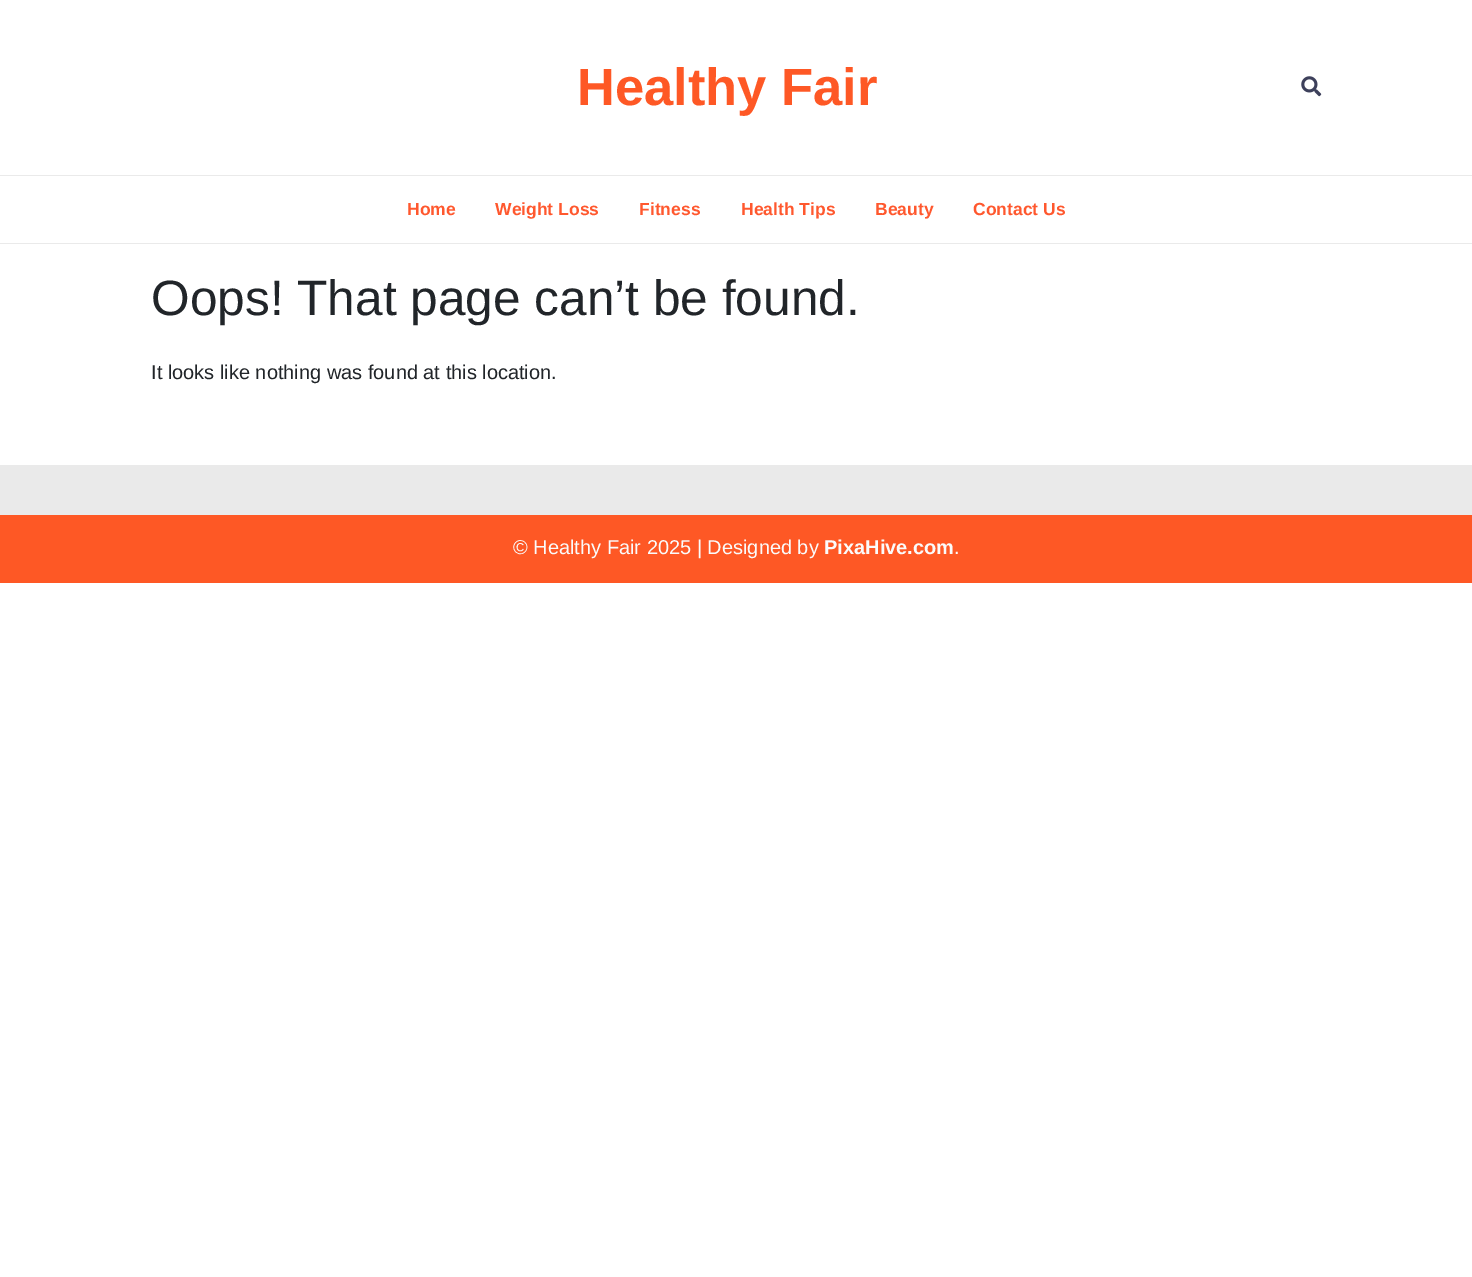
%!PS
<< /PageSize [1472 1277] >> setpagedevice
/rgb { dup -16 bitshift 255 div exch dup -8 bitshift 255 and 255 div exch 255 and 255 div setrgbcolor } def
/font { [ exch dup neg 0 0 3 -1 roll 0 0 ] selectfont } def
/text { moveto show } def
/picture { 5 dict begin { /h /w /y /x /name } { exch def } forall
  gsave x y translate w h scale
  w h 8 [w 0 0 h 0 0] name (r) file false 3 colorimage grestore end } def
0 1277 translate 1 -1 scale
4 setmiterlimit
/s1 { /LiberationSans-Bold 52.5 font 16#FE5825 rgb } def
/s2 { /LiberationSans-Bold 17.5 font 16#FF582E rgb } def
/s3 { /LiberationSans-Regular 49.6 font 16#212529 rgb } def
/s4 { /LiberationSans-Regular 20 font 16#212529 rgb } def
/s5 { /LiberationSans-Regular 20 font 16#FBFBFB rgb } def
/s6 { /LiberationSans-Bold 20 font 16#FBFBFB rgb } def
16#FFFFFF rgb
0 0 1472 1277 rectfill
s1
(Healthy Fair) 577 105 text
(pic1.raw) 1301 76 21 21 picture
16#EAEAEA rgb
0 175 1472 1 rectfill
0 243 1472 1 rectfill
s2
(Home) 407 215 text
(Weight Loss) 495 215 text
(Fitness) 639 215 text
(Health Tips) 741 215 text
(Beauty) 875 215 text
(Contact Us) 973 215 text
s3
(Oops! That page can’t be found.) 151 315 text
s4
(It looks like nothing was found at this location.) 151 379 text
16#EAEAEA rgb
0 465 1472 50 rectfill
16#FE5825 rgb
0 515 1472 68 rectfill
s5
(© Healthy Fair 2025 | Designed by) 513 554 text
s6
(PixaHive.com) 824 554 text
s5
(.) 954 554 text
showpage
